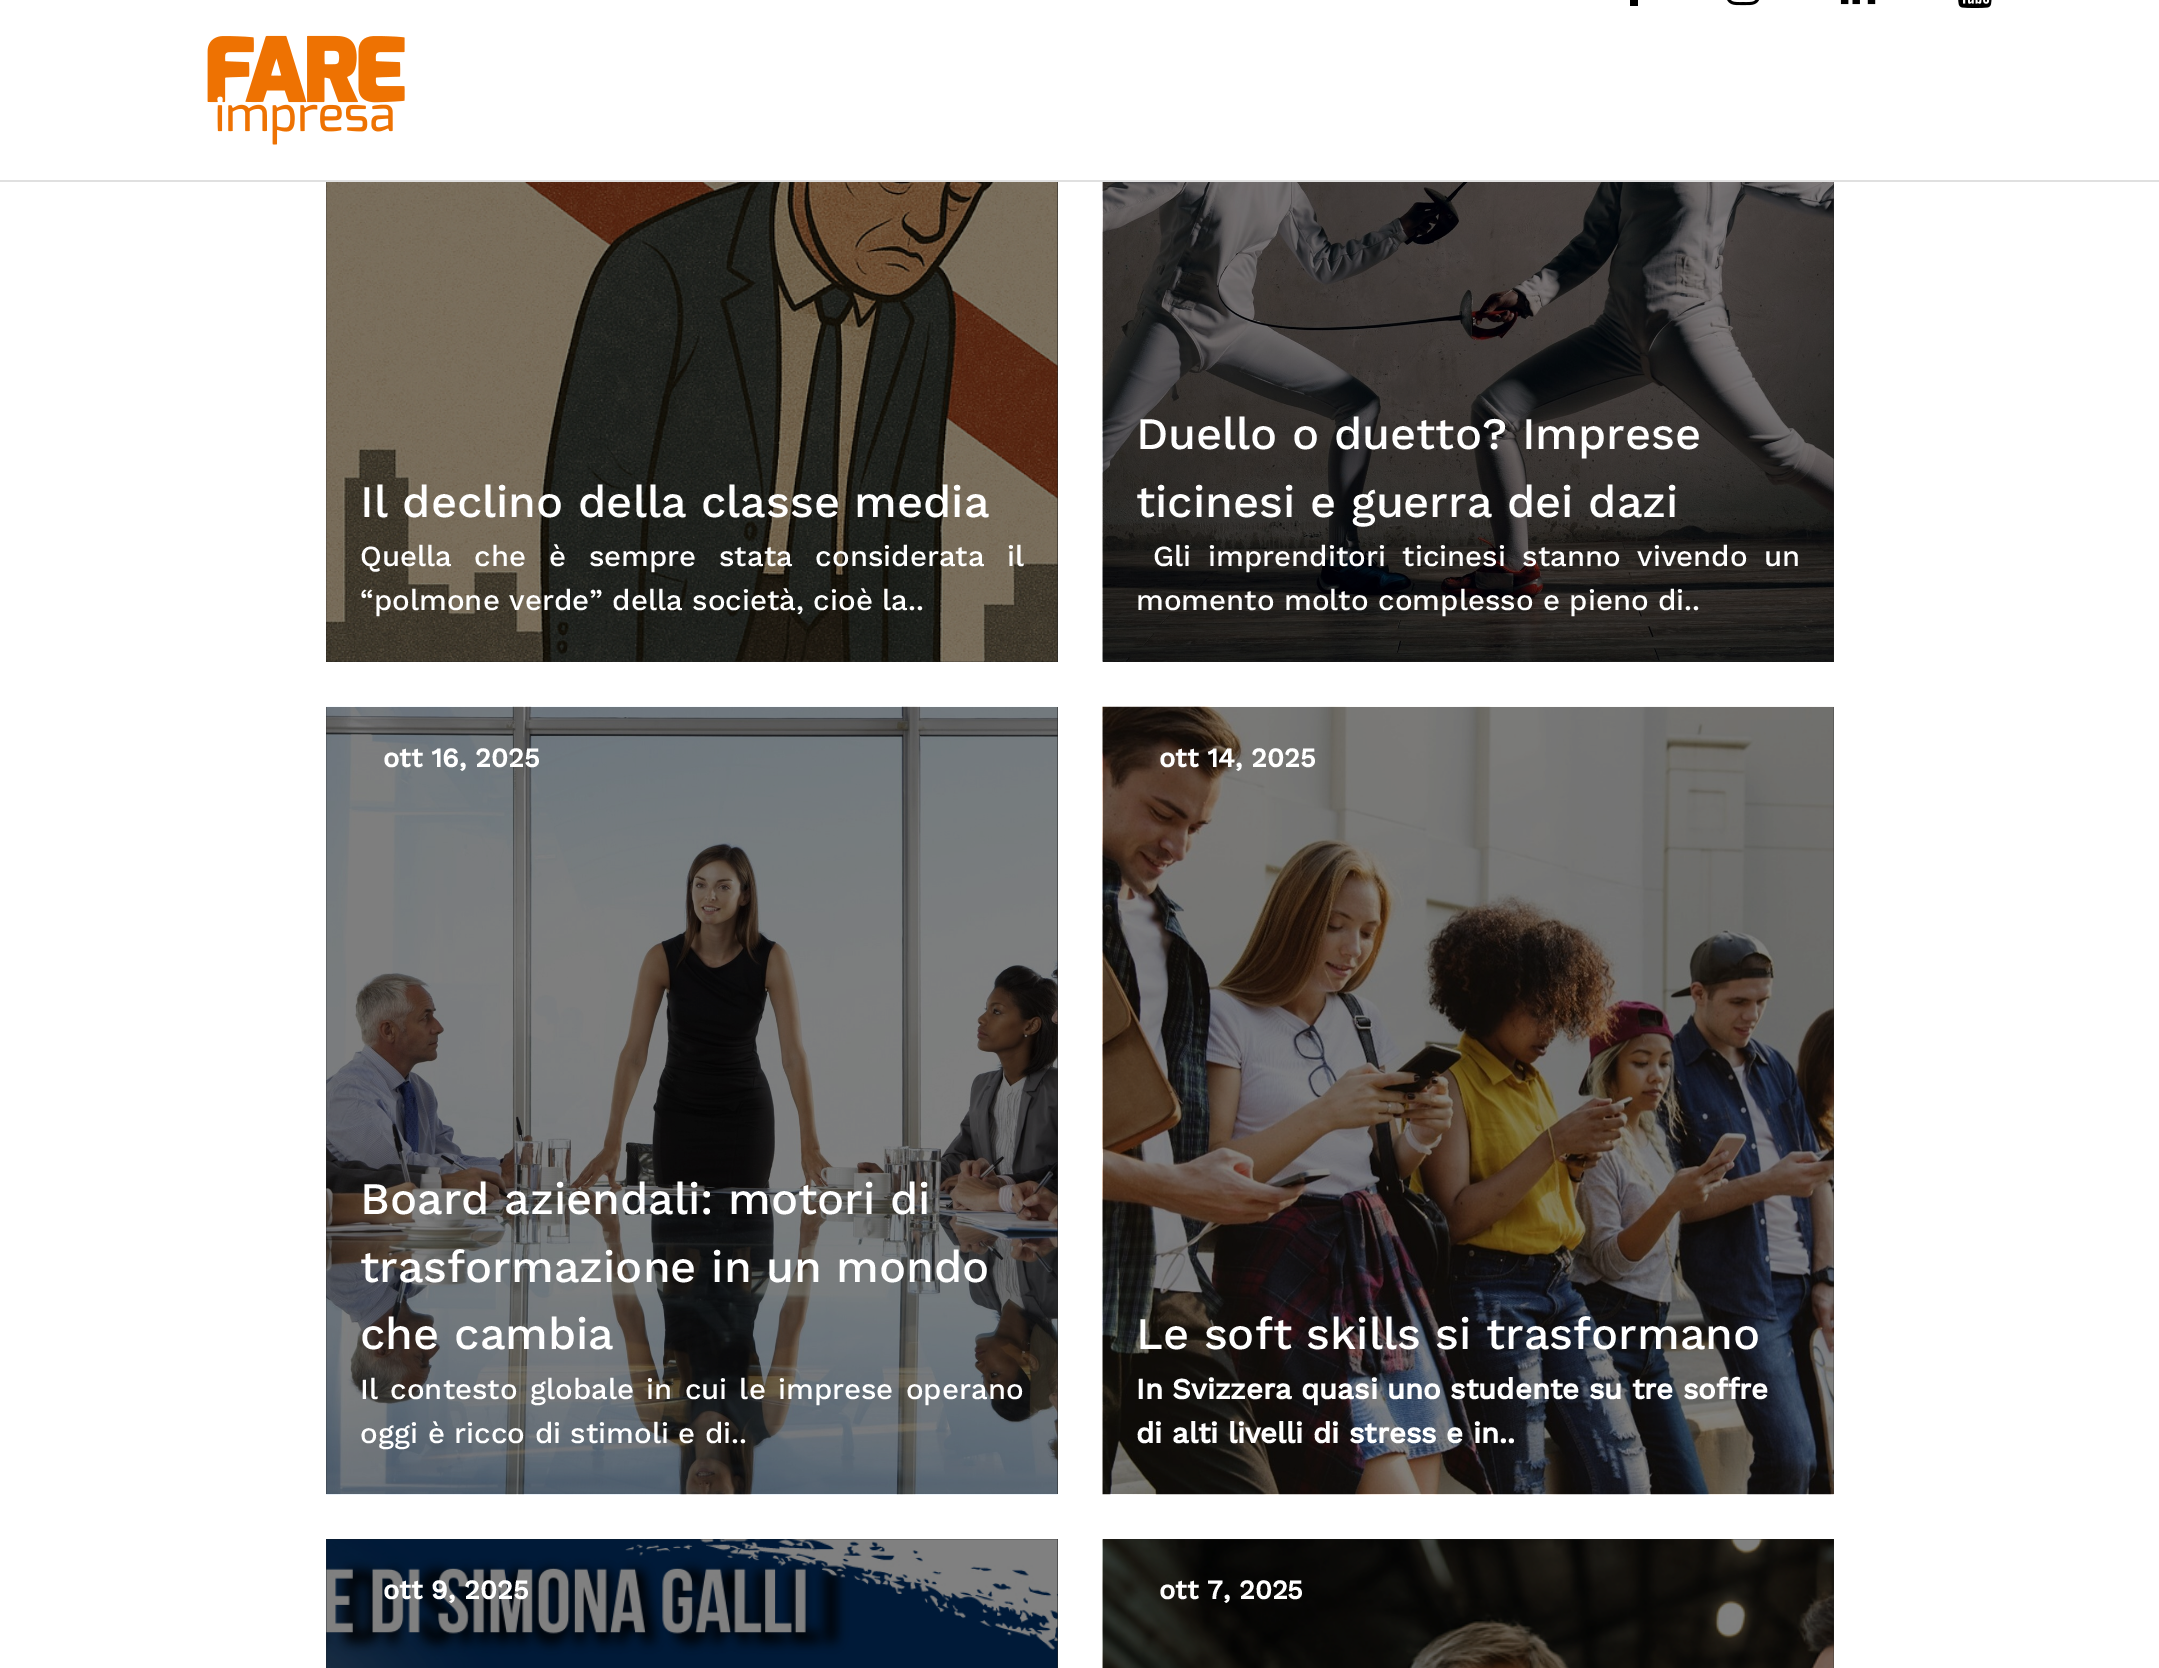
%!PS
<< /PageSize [2159 1668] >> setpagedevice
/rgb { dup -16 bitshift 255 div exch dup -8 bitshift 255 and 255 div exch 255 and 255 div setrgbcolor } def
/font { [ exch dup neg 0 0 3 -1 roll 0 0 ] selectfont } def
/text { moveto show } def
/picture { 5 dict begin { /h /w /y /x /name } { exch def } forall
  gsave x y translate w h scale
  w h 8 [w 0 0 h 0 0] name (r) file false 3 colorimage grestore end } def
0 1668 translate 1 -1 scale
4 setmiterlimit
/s1 { /WorkSans-Medium 45 font 16#FFFFFF rgb } def
/s2 { /WorkSans-Medium 29.25 font 16#FFFFFF rgb } def
/s3 { /WorkSans-Bold 27 font 16#FFFFFF rgb } def
/s4 { /WorkSans-Bold 29.25 font 16#FFFFFF rgb } def
16#FFFFFF rgb
0 0 2159 1668 rectfill
16#E0E0E0 rgb
0 180 2159 2 rectfill
16#000000 rgb
1630 0 8 6 rectfill
(pic1.raw) 1727 0 32 6 picture
(pic2.raw) 1840 0 36 5 picture
(pic3.raw) 1958 0 34 8 picture
(pic4.raw) 207 35 198 110 picture
16#222222 rgb
326 182 732 480 rectfill
(pic5.raw) 326 182 732 480 picture
s1
(Il declino della classe media) 360 517 text
/WorkSans-Medium 29.25 font
360 566 moveto 13.25 0 32 (Quella che è sempre stata considerata il) widthshow
(“polmone verde” della società, cioè la..) 360 610 text
16#222222 rgb
1103 182 731 480 rectfill
(pic6.raw) 1102 182 732 480 picture
s1
(Duello o duetto? Imprese) 1136 449 text
(ticinesi e guerra dei dazi) 1136 517 text
/WorkSans-Medium 29.25 font
1153 566 moveto 7 0 32 (Gli imprenditori ticinesi stanno vivendo un) widthshow
(momento molto complesso e pieno di..) 1136 610 text
16#222222 rgb
326 707 732 787 rectfill
(pic7.raw) 326 706 732 789 picture
s3
(ott 16, 2025) 383 767 text
s1
(Board aziendali: motori di) 360 1214 text
(trasformazione in un mondo) 360 1282 text
(che cambia) 360 1349 text
/WorkSans-Medium 29.25 font
360 1399 moveto 2.75 0 32 (Il contesto globale in cui le imprese operano) widthshow
(oggi è ricco di stimoli e di..) 360 1443 text
(pic8.raw) 1102 706 732 789 picture
s3
(ott 14, 2025) 1159 767 text
s1
(Le soft skills si trasformano) 1136 1349 text
s4
(In Svizzera quasi uno studente su tre soffre) 1136 1399 text
(di alti livelli di stress e in..) 1136 1443 text
16#222222 rgb
326 1539 732 129 rectfill
(pic9.raw) 326 1539 732 129 picture
s3
(ott 9, 2025) 383 1599 text
16#222222 rgb
1103 1539 731 129 rectfill
(pic10.raw) 1102 1539 732 129 picture
s3
(ott 7, 2025) 1159 1599 text
showpage
